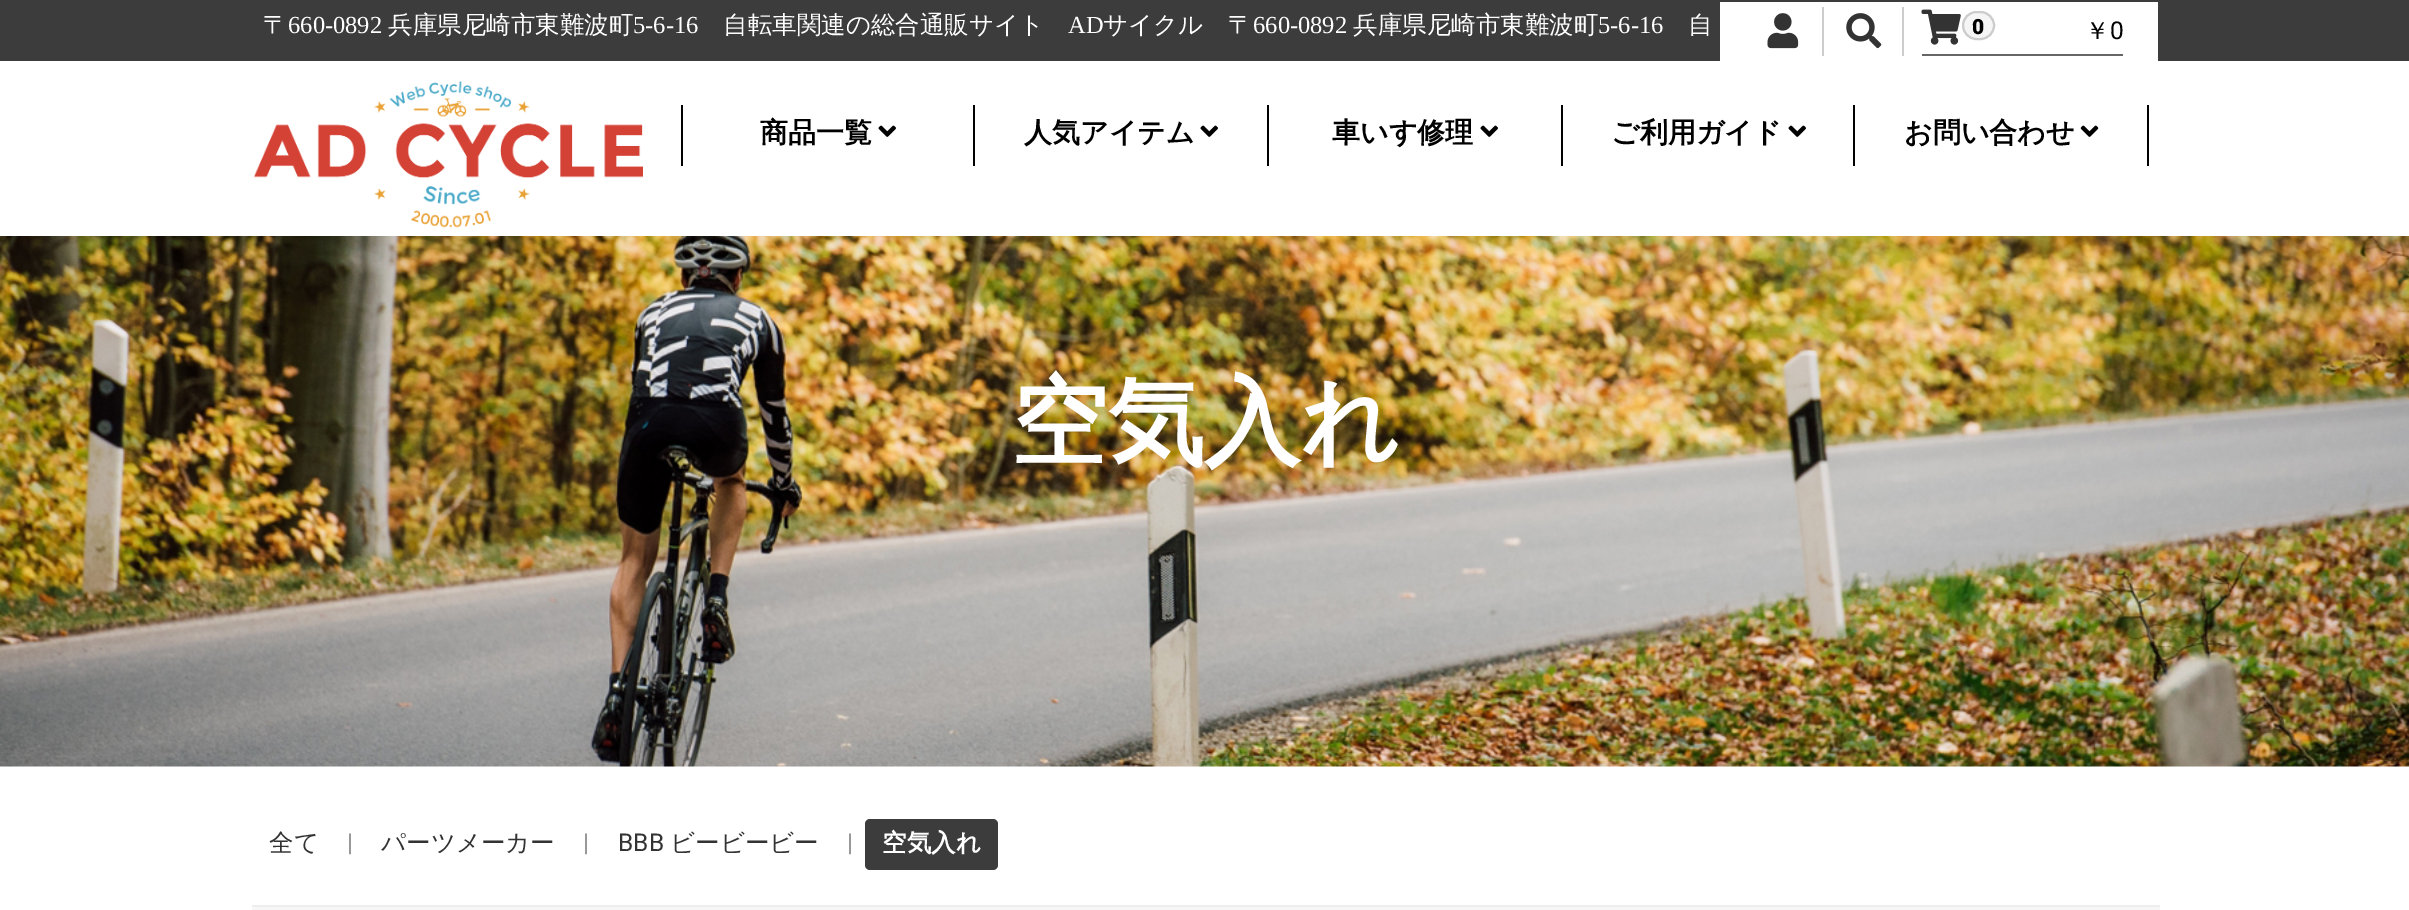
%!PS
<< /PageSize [2409 910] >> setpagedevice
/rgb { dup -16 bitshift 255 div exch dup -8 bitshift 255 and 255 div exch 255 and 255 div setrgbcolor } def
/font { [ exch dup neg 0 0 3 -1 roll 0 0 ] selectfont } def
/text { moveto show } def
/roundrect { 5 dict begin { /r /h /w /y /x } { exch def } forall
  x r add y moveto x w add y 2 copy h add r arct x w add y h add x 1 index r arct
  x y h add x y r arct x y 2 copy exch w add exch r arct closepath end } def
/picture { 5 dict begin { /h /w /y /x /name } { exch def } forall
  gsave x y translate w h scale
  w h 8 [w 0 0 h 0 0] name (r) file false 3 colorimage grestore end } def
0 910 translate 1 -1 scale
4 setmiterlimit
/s1 { /WenQuanYiZenHei-Medium 24.5 font 16#FFFFFF rgb } def
/s2 { /LiberationSerif-Regular 24.5 font 16#FFFFFF rgb } def
/s3 { /Roboto-Black 21 font 16#000000 rgb } def
/s4 { /WenQuanYiZenHei-Medium 24.5 font 16#000000 rgb } def
/s5 { /Roboto-Regular 24.5 font 16#000000 rgb } def
/s6 { /WenQuanYiZenHei-Bold 28 font 16#000000 rgb } def
/s7 { /WenQuanYiZenHei-Bold 96.5 font 16#FFFFFF rgb } def
/s8 { /WenQuanYiZenHei-Medium 24.5 font 16#333333 rgb } def
/s9 { /Roboto-Regular 24.5 font 16#999999 rgb } def
/s10 { /Roboto-Regular 24.5 font 16#333333 rgb } def
/s11 { /WenQuanYiZenHei-Bold 24.5 font 16#FFFFFF rgb } def
16#FFFFFF rgb
0 0 2409 910 rectfill
16#3C3C3C rgb
0 0 2409 61 rectfill
s1
(〒) 263 33 text
s2
(660-0892) 288 33 text
s1
(兵庫県尼崎市東難波町) 388 33 text
s2
(5-6-16) 633 33 text
s1
(自転車関連の総合通販サイト) 723 33 text
s2
(AD) 1068 33 text
s1
(サイクル) 1103 33 text
(〒) 1228 33 text
s2
(660-0892) 1253 33 text
s1
(兵庫県尼崎市東難波町) 1353 33 text
s2
(5-6-16) 1598 33 text
s1
(自) 1688 33 text
1720 2 438 59 rectfill
16#CCCCCC rgb
1822 7 2 49 rectfill
(pic1.raw) 1767 13 32 36 picture
1902 7 2 49 rectfill
(pic2.raw) 1846 13 36 36 picture
16#666666 rgb
1922 54 201 2 rectfill
(pic3.raw) 1921 9 40 36 picture
16#F5F5F5 rgb
1963 12 31 27 13.5 roundrect gsave fill grestore
16#CCCCCC rgb
2 setlinewidth
stroke
s3
(0) 1972 34 text
s4
(￥) 2085 39 text
s5
(0) 2110 39 text
(pic4.raw) 253 81 390 147 picture
973 105 2 61 rectfill
681 105 2 61 rectfill
s6
(商品一覧) 760 142 text
(pic5.raw) 878 125 18 12 picture
1267 105 2 61 rectfill
(人気アイテム) 1024 142 text
(pic5.raw) 1200 125 18 12 picture
1561 105 2 61 rectfill
(車いす修理) 1332 142 text
(pic5.raw) 1480 125 18 12 picture
1853 105 2 61 rectfill
(ご利用ガイド) 1611 142 text
(pic5.raw) 1788 125 18 12 picture
2147 105 2 61 rectfill
(お問い合わせ) 1904 142 text
(pic6.raw) 2080 125 19 12 picture
(pic7.raw) 0 236 2409 531 picture
s7
(空気入れ) 1011 455 text
s8
(全て) 269 851 text
s9
(|) 347 851 text
s8
(パーツメーカー) 381 851 text
s9
(|) 583 851 text
s10
(BBB) 618 851 text
s8
(ビービービー) 670 851 text
s9
(|) 847 851 text
16#3C3C3C rgb
865 819 133 51 5 roundrect fill
s11
(空気入れ) 882 851 text
16#F7F7F7 rgb
252 907 1908 3 rectfill
16#EEEEEE rgb
252 905 1908 2 rectfill
showpage
